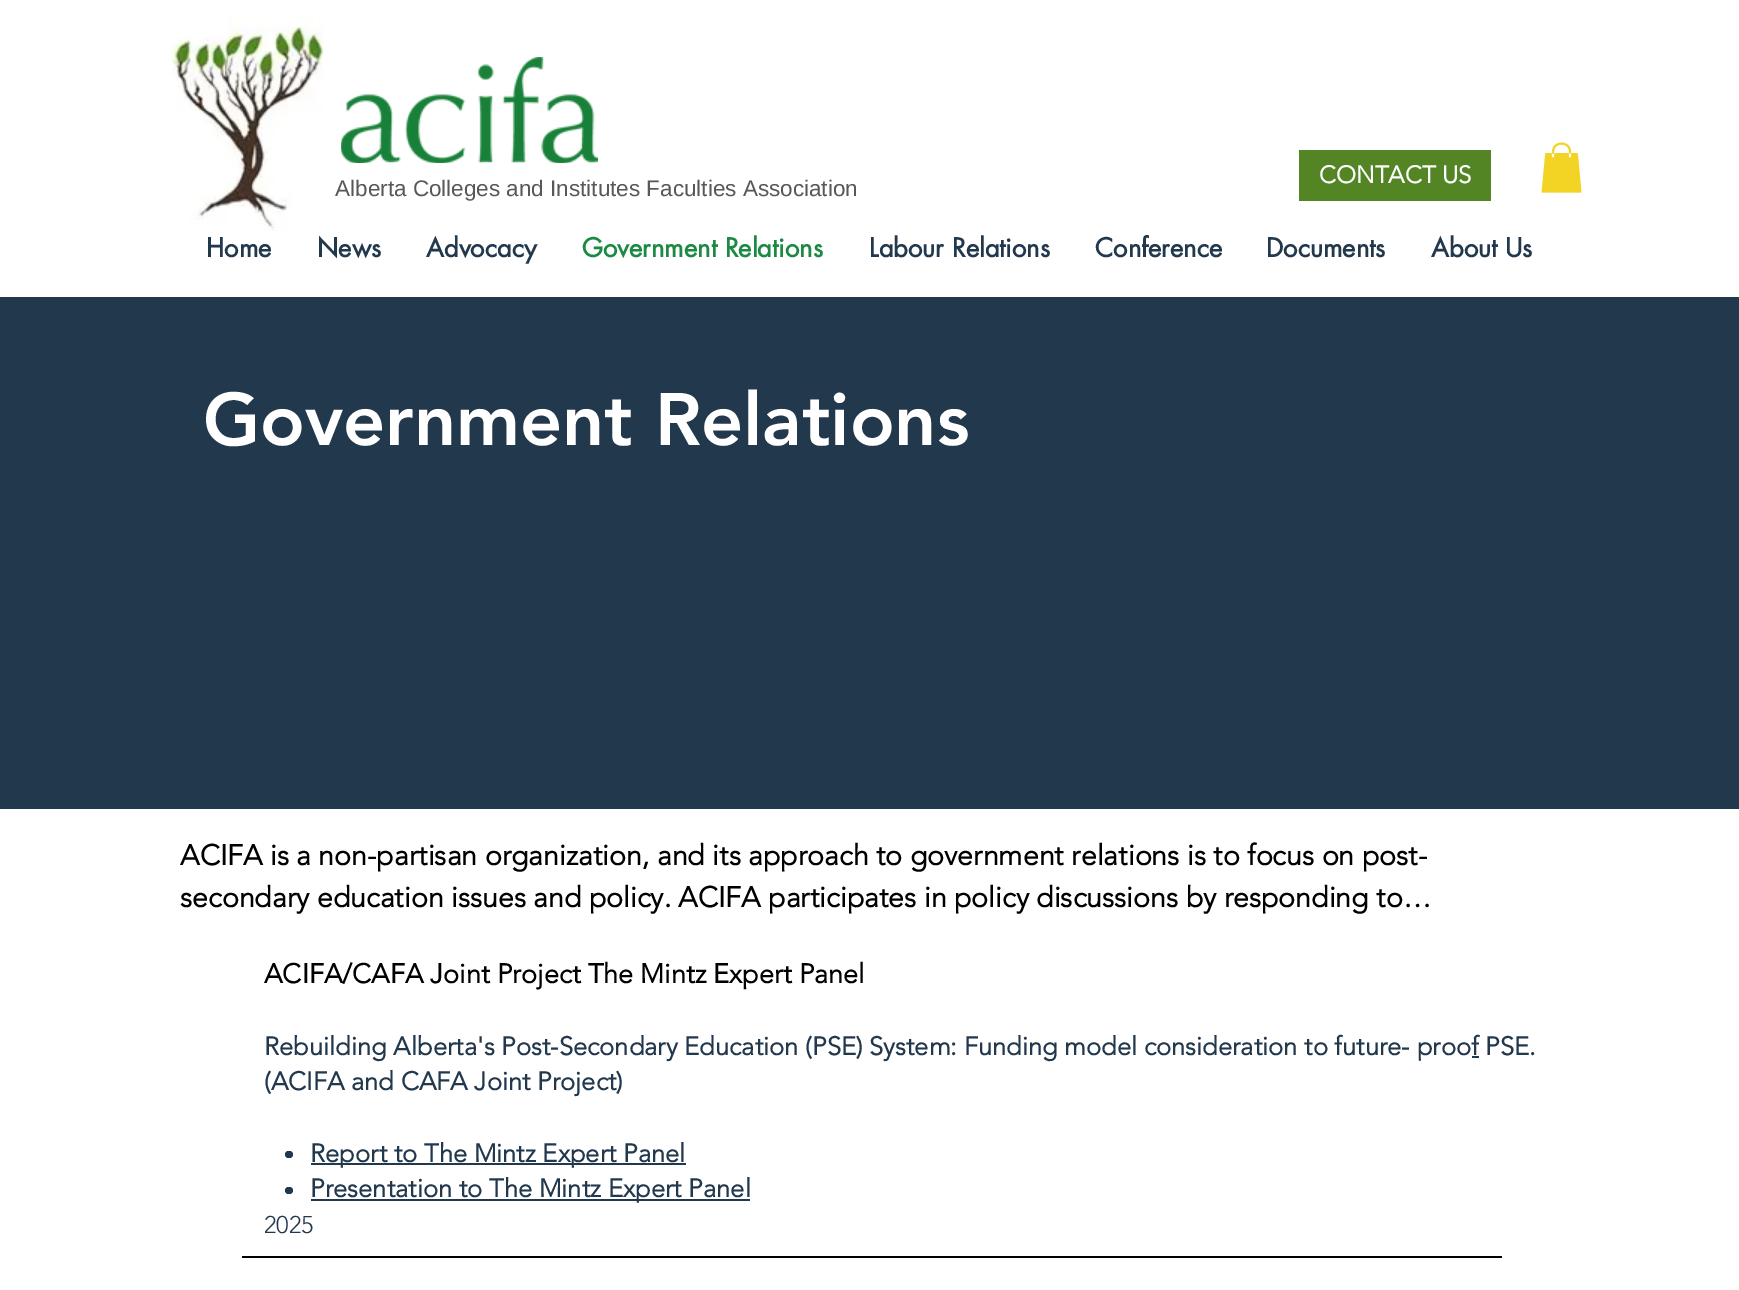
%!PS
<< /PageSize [1739 1290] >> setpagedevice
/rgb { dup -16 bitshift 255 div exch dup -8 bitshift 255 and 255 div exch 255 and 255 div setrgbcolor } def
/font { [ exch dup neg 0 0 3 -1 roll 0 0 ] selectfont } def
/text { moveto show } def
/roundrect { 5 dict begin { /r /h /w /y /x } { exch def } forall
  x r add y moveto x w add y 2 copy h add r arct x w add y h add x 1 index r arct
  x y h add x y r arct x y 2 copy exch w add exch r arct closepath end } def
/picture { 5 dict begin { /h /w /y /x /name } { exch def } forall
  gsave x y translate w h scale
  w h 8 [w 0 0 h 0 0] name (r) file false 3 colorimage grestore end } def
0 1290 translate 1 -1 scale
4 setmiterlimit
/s1 { /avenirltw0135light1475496-Bold 24 font 16#FFFFFF rgb } def
/s2 { /LiberationSans-Regular 22.5 font 16#585858 rgb } def
/s3 { /futura-Bold 25.5 font 16#22384D rgb } def
/s4 { /futura-Bold 25.5 font 16#1C8A43 rgb } def
/s5 { /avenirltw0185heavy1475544-Black 73.5 font 16#FFFFFF rgb } def
/s6 { /avenirltw0135light1475496-Bold 28.5 font 16#000000 rgb } def
/s7 { /avenirltw0135light1475496-Bold 27 font 16#000000 rgb } def
/s8 { /avenirltw0135light1475496-Bold 25.5 font 16#22384D rgb } def
/s9 { /avenirltw0135light1475496-Light 24 font 16#22384D rgb } def
16#FFFFFF rgb
0 0 1739 1290 rectfill
(pic1.raw) 171 15 153 216 picture
(pic2.raw) 341 57 258 107 picture
16#548525 rgb
1299 150 192 51 rectfill
s1
(CONTACT US) 1319 183 text
(pic3.raw) 1541 142 41 51 picture
s2
(Alberta Colleges and Institutes Faculties Association) 335 196 text
s3
(Home) 206 257 text
(News) 317 257 text
(Advocacy) 426 257 text
s4
(Government Relations) 582 257 text
s3
(Labour Relations) 869 257 text
(Conference) 1095 257 text
(Documents) 1266 257 text
(About Us) 1431 257 text
0 297 1739 512 rectfill
s5
(Government Relations) 203 445 text
s6
(ACIFA is a non-partisan organization, and its approach to government relations is to focus on post-) 180 865 text
(secondary education issues and policy. ACIFA participates in policy discussions by responding to…) 180 907 text
s7
(ACIFA/CAFA Joint Project The Mintz Expert Panel) 264 983 text
s8
(Rebuilding Alberta's Post-Secondary Education \(PSE\) System: Funding model consideration to future- proof PSE.) 264 1055 text
1472 1056 7 2 rectfill
(\(ACIFA and CAFA Joint Project\)) 264 1090 text
285 1151 8 7 3.5 roundrect fill
311 1163 375 2 rectfill
(Report to The Mintz Expert Panel) 310 1162 text
285 1187 8 7 3.5 roundrect fill
311 1199 439 2 rectfill
(Presentation to The Mintz Expert Panel) 310 1197 text
s9
(2025) 264 1233 text
16#000000 rgb
242 1256 1260 2 rectfill
showpage
